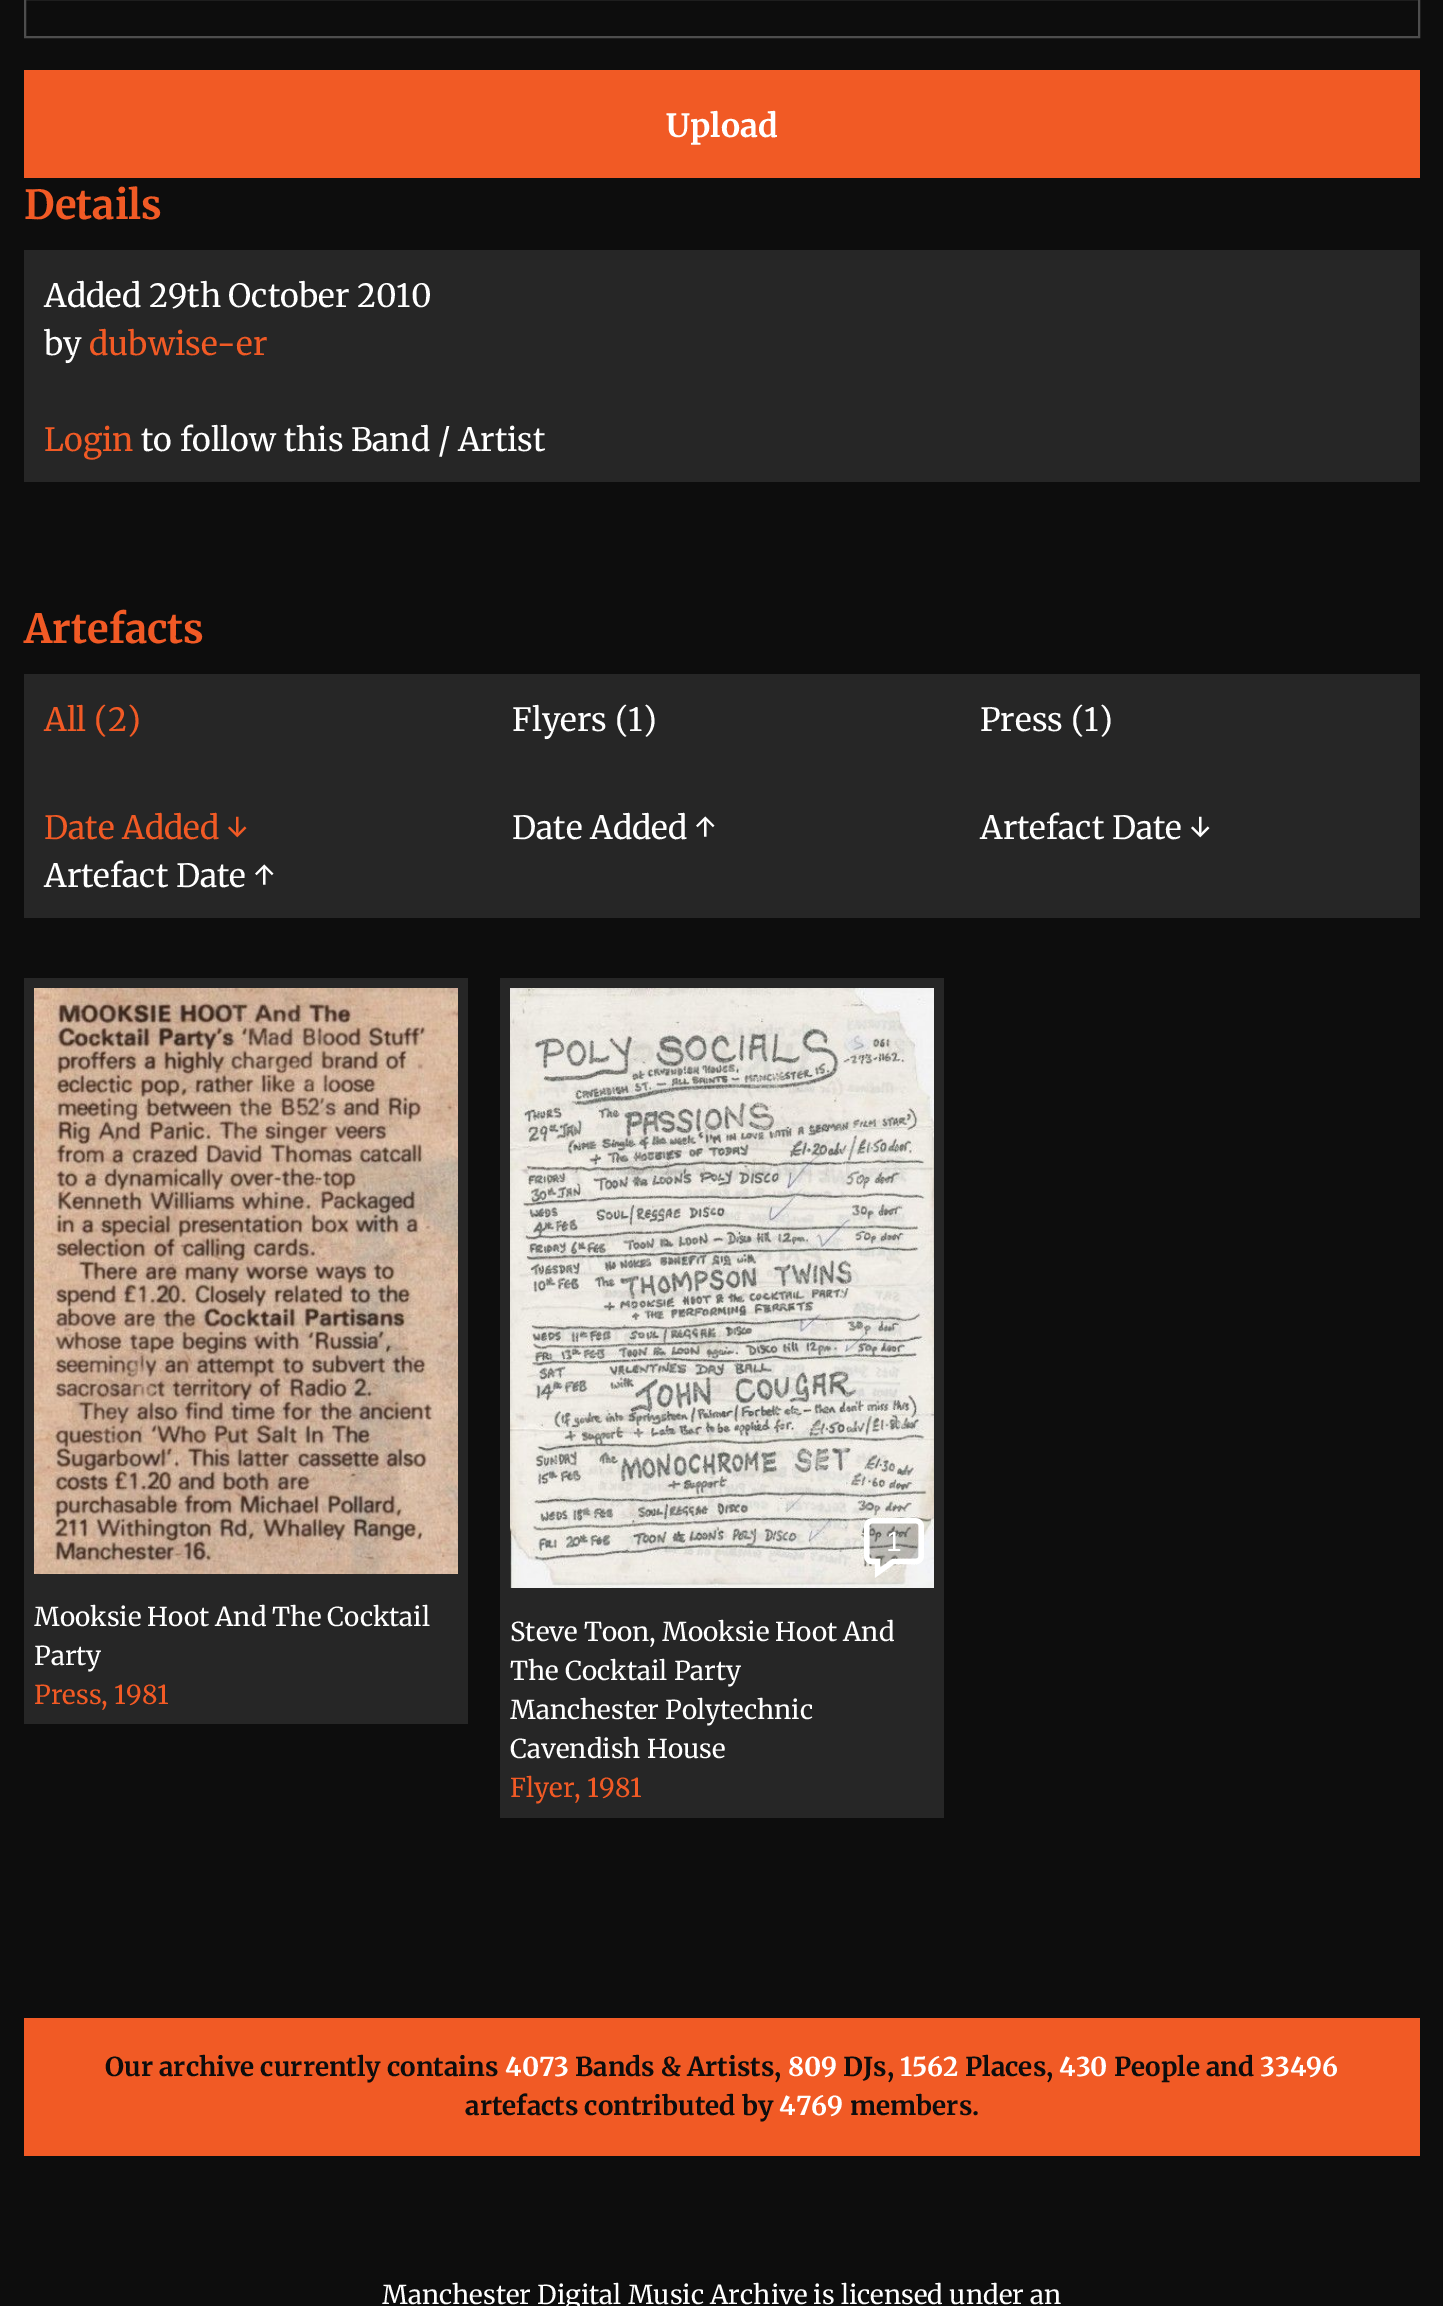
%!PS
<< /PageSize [1443 2306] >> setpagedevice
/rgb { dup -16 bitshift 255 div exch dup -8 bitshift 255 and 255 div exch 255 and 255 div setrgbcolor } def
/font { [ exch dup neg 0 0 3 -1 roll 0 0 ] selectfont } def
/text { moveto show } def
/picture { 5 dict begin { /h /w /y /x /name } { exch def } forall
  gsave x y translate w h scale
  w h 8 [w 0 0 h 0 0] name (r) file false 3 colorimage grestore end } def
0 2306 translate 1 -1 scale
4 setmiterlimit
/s1 { /Merriweather-Bold 32 font 16#FFFFFF rgb } def
/s2 { /Merriweather-Bold 40 font 16#F15A25 rgb } def
/s3 { /Merriweather-Regular 32 font 16#FFFFFF rgb } def
/s4 { /Merriweather-Regular 32 font 16#F15A25 rgb } def
/s5 { /Merriweather-Regular 26 font 16#FFFFFF rgb } def
/s6 { /Merriweather-Regular 26 font 16#F15A25 rgb } def
/s7 { /LiberationSans-Regular 28 font 16#FFFFFF rgb } def
/s8 { /Merriweather-Bold 26 font 16#0D0D0D rgb } def
/s9 { /Merriweather-Bold 26 font 16#FFFFFF rgb } def
16#0D0D0D rgb
0 0 1443 2306 rectfill
16#4D4D4D rgb
2 setlinewidth
25 -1 1394 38 rectstroke
16#F15A25 rgb
24 70 1396 108 rectfill
s1
(Upload) 666 137 text
s2
(Details) 24 219 text
16#262626 rgb
24 250 1396 232 rectfill
s3
(Added 29th October 2010) 44 307 text
(by) 44 355 text
s4
(dubwise-er) 89 355 text
(Login) 44 451 text
s3
(to follow this Band / Artist) 141 451 text
s2
(Artefacts) 24 643 text
16#262626 rgb
24 674 1396 244 rectfill
s4
(All \(2\)) 44 731 text
s3
(Flyers \(1\)) 512 731 text
(Press \(1\)) 980 731 text
s4
(Date Added ↓) 44 839 text
s3
(Date Added ↑) 512 839 text
(Artefact Date ↓) 980 839 text
(Artefact Date ↑) 44 887 text
16#262626 rgb
24 978 444 746 rectfill
(pic1.raw) 34 988 424 586 picture
s5
(Mooksie Hoot And The Cocktail) 34 1626 text
(Party) 34 1665 text
s6
(Press, 1981) 34 1704 text
16#262626 rgb
500 978 444 840 rectfill
(pic2.raw) 510 988 424 600 picture
(pic3.raw) 864 1518 60 60 picture
s7
(1) 886 1551 text
s5
(Steve Toon, Mooksie Hoot And) 510 1641 text
(The Cocktail Party) 510 1680 text
(Manchester Polytechnic) 510 1719 text
(Cavendish House) 510 1758 text
s6
(Flyer, 1981) 510 1797 text
24 2018 1396 138 rectfill
s8
(Our archive currently contains) 105 2076 text
s9
(4073) 505 2076 text
s8
(Bands & Artists,) 575 2076 text
s9
(809) 788 2076 text
s8
(DJs,) 843 2076 text
s9
(1562) 900 2076 text
s8
(Places,) 965 2076 text
s9
(430) 1059 2076 text
s8
(People and) 1114 2076 text
s9
(33496) 1260 2076 text
s8
(artefacts contributed by) 465 2115 text
s9
(4769) 779 2115 text
s8
(members.) 850 2115 text
s5
(Manchester Digital Music Archive is licensed under an) 382 2304 text
showpage
